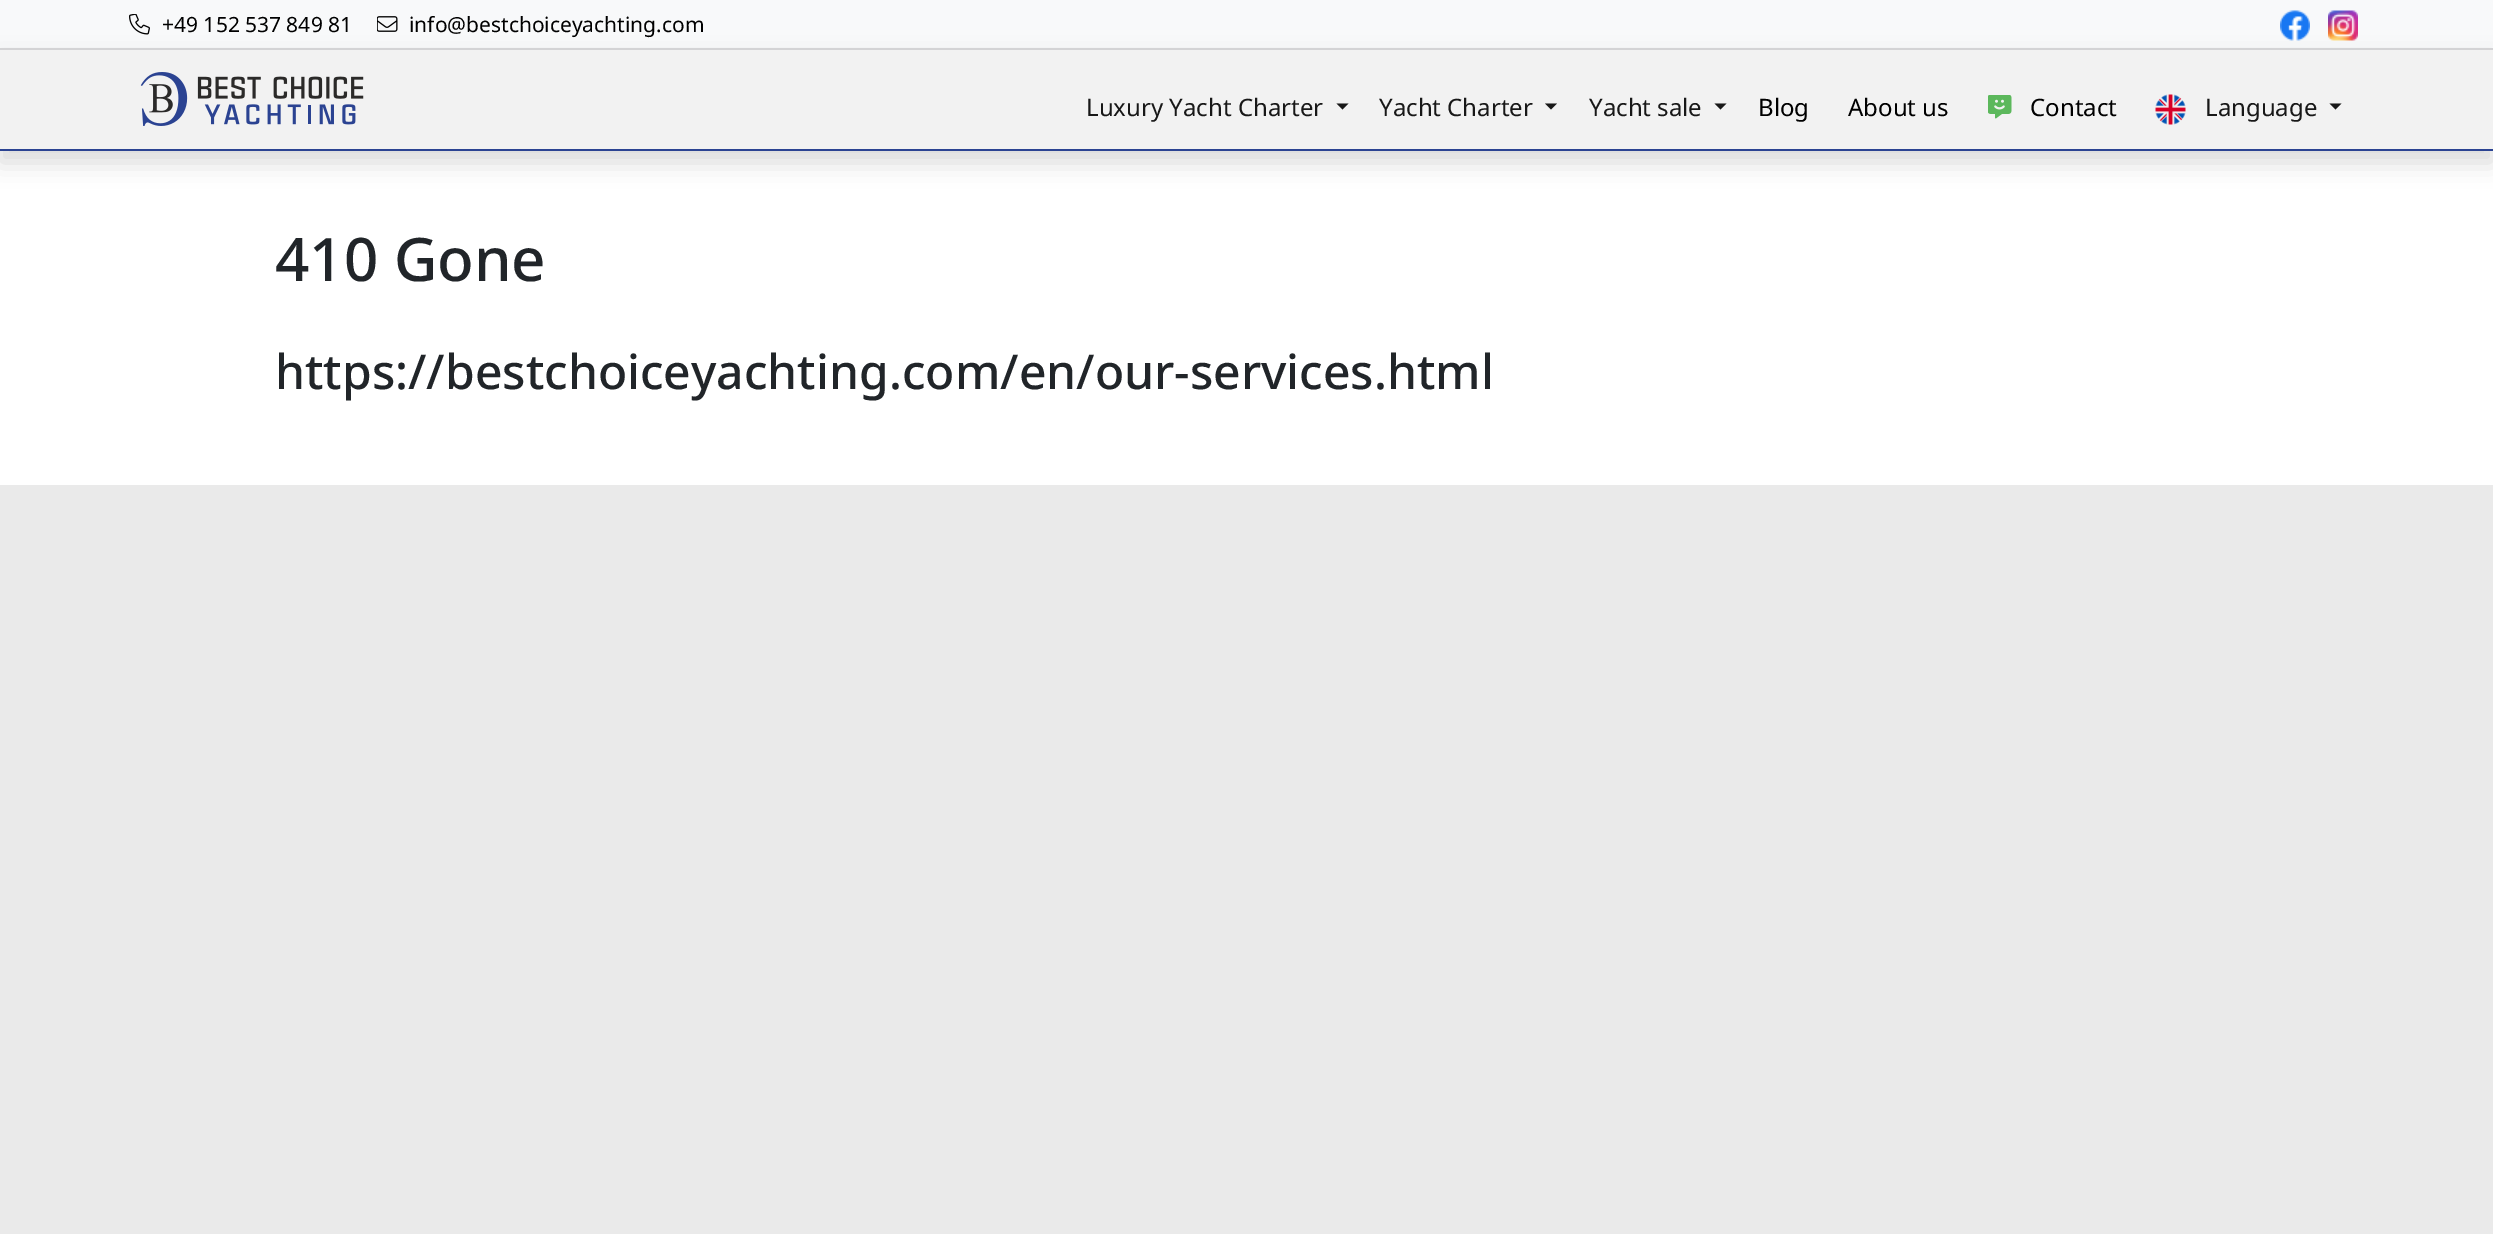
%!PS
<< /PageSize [2493 1234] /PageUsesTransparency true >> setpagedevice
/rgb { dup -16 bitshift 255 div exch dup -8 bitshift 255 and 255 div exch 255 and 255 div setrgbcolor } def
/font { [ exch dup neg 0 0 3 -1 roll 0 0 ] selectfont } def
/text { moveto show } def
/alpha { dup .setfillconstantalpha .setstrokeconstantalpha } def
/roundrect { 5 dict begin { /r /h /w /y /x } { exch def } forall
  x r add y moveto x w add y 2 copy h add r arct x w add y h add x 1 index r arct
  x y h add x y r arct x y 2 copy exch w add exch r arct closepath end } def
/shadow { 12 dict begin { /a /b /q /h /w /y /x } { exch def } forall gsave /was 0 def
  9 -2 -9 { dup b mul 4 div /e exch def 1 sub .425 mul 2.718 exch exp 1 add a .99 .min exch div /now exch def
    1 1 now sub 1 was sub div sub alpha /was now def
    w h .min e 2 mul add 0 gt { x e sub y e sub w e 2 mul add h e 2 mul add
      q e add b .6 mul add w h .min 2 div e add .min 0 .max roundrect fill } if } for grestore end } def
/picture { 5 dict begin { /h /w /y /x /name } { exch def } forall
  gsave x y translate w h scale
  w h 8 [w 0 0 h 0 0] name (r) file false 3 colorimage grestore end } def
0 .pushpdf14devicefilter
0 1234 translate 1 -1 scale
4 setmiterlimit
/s1 { /NotoSans-Regular 21 font 16#000000 rgb } def
/s2 { /NotoSans-Regular 24 font 16#181818 rgb } def
/s3 { /NotoSans-Regular 24 font 16#000000 rgb } def
/s4 { /NotoSans-Medium 60 font 16#212529 rgb } def
/s5 { /NotoSans-Medium 48 font 16#212529 rgb } def
16#EAEAEA rgb
0 0 2493 1234 rectfill
16#F8F9FA rgb
0 0 2493 48 rectfill
16#D9D9DB rgb
0 48 2493 2 rectfill
(pic1.raw) 129 14 21 21 picture
s1
(+49 152 537 849 81) 162 32 text
(pic2.raw) 377 16 21 16 picture
(info@bestchoiceyachting.com) 409 32 text
(pic3.raw) 2280 10 30 31 picture
(pic4.raw) 2328 10 30 31 picture
16#FFFFFF rgb
0 151 2493 334 rectfill
16#000000 rgb
0 62 2493 100 0 12 0.15 shadow
16#F2F2F2 rgb
0 50 2493 99 rectfill
16#2B4392 rgb
0 149 2493 2 rectfill
(pic5.raw) 140 72 224 54 picture
s2
(Luxury Yacht Charter) 1086 116 text
1336.5 103.5 moveto 1348.5 103.5 lineto 1342.5 109.5 lineto closepath fill
(Yacht Charter) 1379 116 text
1545 103.5 moveto 1557 103.5 lineto 1551 109.5 lineto closepath fill
(Yacht sale) 1589 116 text
1714.5 103.5 moveto 1726.5 103.5 lineto 1720.5 109.5 lineto closepath fill
s3
(Blog) 1758 116 text
(About us) 1848 116 text
(pic6.raw) 1988 95 24 24 picture
(Contact) 2030 116 text
(pic7.raw) 2155 94 31 31 picture
s2
(Language) 2205 116 text
2329.5 103.5 moveto 2341.5 103.5 lineto 2335.5 109.5 lineto closepath fill
s4
(410 Gone) 275 281 text
s5
(https://bestchoiceyachting.com/en/our-services.html) 275 389 text
.poppdf14devicefilter showpage
